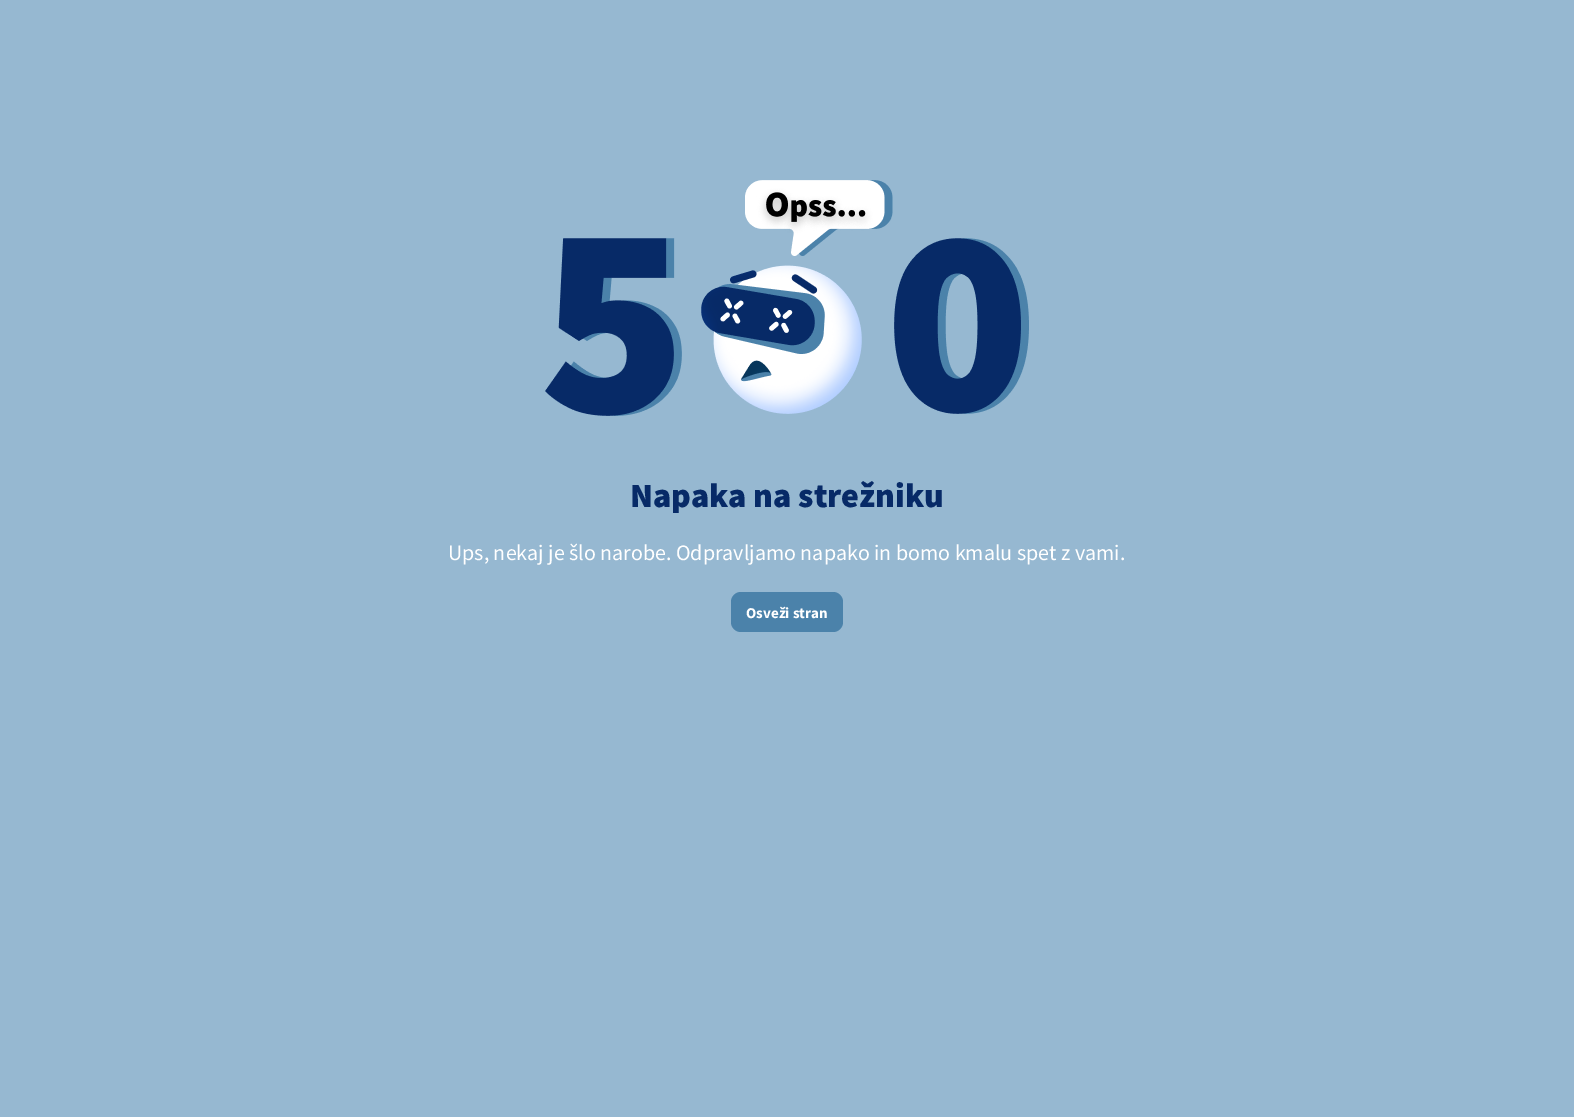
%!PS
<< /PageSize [1574 1117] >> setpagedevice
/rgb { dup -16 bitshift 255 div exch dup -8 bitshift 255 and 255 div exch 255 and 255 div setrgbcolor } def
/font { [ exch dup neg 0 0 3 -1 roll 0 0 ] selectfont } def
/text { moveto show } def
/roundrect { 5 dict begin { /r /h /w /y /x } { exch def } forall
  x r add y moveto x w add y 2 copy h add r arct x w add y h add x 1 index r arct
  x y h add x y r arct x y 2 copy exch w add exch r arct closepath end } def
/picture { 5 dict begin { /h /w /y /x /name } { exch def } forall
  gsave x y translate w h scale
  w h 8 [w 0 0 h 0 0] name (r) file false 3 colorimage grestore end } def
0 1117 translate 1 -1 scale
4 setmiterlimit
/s1 { /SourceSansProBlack-Black 34 font 16#072A67 rgb } def
/s2 { /SourceSansPro-Regular 22 font 16#FFFFFF rgb } def
/s3 { /SourceSansPro-Bold 15 font 16#FFFFFF rgb } def
16#96B8D1 rgb
0 0 1574 1117 rectfill
(pic1.raw) 545 180 484 236 picture
s1
(Napaka na strežniku) 630 507 text
s2
(Ups, nekaj je šlo narobe. Odpravljamo napako in bomo kmalu spet z vami.) 448 560 text
16#4B82AA rgb
731 592 112 40 10 roundrect fill
s3
(Osveži stran) 746 618 text
showpage
